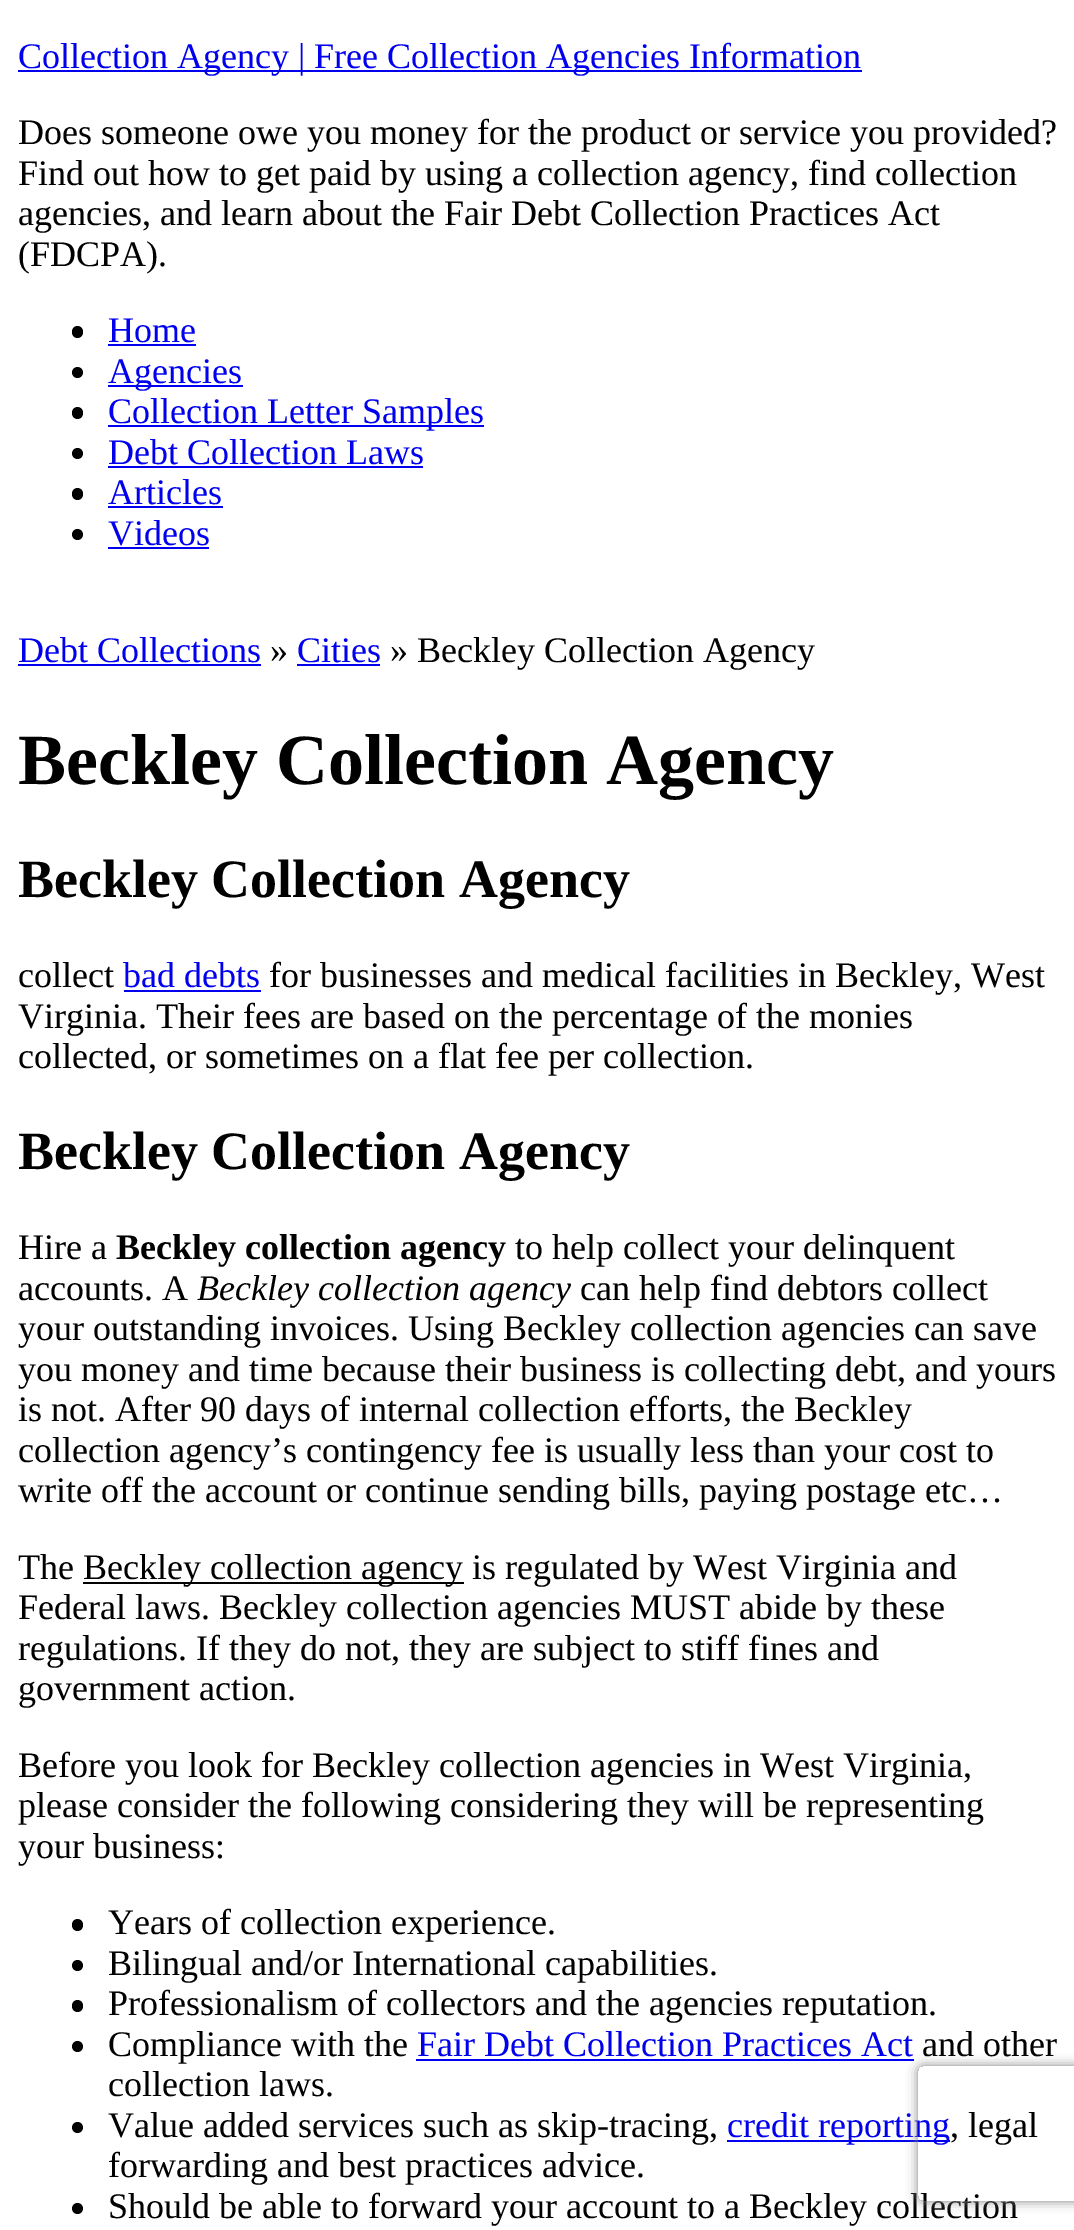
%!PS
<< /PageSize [1074 2230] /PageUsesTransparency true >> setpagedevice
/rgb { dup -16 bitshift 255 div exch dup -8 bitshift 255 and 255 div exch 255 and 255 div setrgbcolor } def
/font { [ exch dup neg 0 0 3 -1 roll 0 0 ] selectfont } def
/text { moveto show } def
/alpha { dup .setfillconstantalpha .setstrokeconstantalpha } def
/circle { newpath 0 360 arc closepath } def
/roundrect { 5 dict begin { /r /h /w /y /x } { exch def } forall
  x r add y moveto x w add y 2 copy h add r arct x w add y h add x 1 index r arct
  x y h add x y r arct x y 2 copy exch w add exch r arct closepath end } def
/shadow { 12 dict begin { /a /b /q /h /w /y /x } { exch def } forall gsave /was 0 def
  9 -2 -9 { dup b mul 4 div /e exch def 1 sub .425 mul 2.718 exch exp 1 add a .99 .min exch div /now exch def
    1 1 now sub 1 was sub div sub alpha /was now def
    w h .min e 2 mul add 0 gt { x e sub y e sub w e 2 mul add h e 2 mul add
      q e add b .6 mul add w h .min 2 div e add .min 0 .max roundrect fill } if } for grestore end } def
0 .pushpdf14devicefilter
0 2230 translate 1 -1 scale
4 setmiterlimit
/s1 { /LiberationSerif-Regular 36 font 16#0000EE rgb } def
/s2 { /LiberationSerif-Regular 36 font 16#000000 rgb } def
/s3 { /LiberationSerif-Bold 72 font 16#000000 rgb } def
/s4 { /LiberationSerif-Bold 54 font 16#000000 rgb } def
/s5 { /LiberationSerif-Bold 36 font 16#000000 rgb } def
/s6 { /LiberationSerif-Italic 36 font 16#000000 rgb } def
16#FFFFFF rgb
0 0 1074 2230 rectfill
16#0000EE rgb
18 70 844 2 rectfill
s1
(Collection Agency | Free Collection Agencies Information) 18 68 text
s2
(Does someone owe you money for the product or service you provided?) 18 144 text
(Find out how to get paid by using a collection agency, find collection) 18 185 text
(agencies, and learn about the Fair Debt Collection Practices Act) 18 225 text
(\(FDCPA\).) 18 266 text
72 326 11 12 5.5 roundrect fill
s1
(Home) 108 342 text
108 344 88 2 rectfill
16#000000 rgb
77.5 372.5 5.5 circle fill
16#0000EE rgb
108 385 135 2 rectfill
(Agencies) 108 383 text
16#000000 rgb
72 407 11 12 5.5 roundrect fill
16#0000EE rgb
108 425 376 2 rectfill
(Collection Letter Samples) 108 423 text
16#000000 rgb
77.5 453.5 5.5 circle fill
s1
(Debt Collection Laws) 108 464 text
108 466 315 2 rectfill
16#000000 rgb
72 488 11 12 5.5 roundrect fill
s1
(Articles) 108 504 text
108 506 115 2 rectfill
16#000000 rgb
77.5 534.5 5.5 circle fill
s1
(Videos) 108 545 text
108 547 101 2 rectfill
(Debt Collections) 18 662 text
18 664 243 2 rectfill
s2
(») 270 662 text
s1
(Cities) 297 662 text
297 664 83 2 rectfill
s2
(» Beckley Collection Agency) 390 662 text
s3
(Beckley Collection Agency) 18 784 text
s4
(Beckley Collection Agency) 18 897 text
s2
(collect) 18 987 text
s1
(bad debts) 123 987 text
124 990 137 2 rectfill
s2
(for businesses and medical facilities in Beckley, West) 269 987 text
(Virginia. Their fees are based on the percentage of the monies) 18 1028 text
(collected, or sometimes on a flat fee per collection.) 18 1068 text
s4
(Beckley Collection Agency) 18 1169 text
s2
(Hire a) 18 1259 text
s5
(Beckley collection agency) 116 1259 text
s2
(to help collect your delinquent) 515 1259 text
(accounts. A) 18 1300 text
s6
(Beckley collection agency) 197 1300 text
s2
(can help find debtors collect) 580 1300 text
(your outstanding invoices. Using Beckley collection agencies can save) 18 1340 text
(you money and time because their business is collecting debt, and yours) 18 1381 text
(is not. After 90 days of internal collection efforts, the Beckley) 18 1421 text
(collection agency’s contingency fee is usually less than your cost to) 18 1462 text
(write off the account or continue sending bills, paying postage etc…) 18 1502 text
(The) 18 1579 text
83 1582 381 2 rectfill
(Beckley collection agency is regulated by West Virginia and) 83 1579 text
(Federal laws. Beckley collection agencies MUST abide by these) 18 1619 text
(regulations. If they do not, they are subject to stiff fines and) 18 1660 text
(government action.) 18 1700 text
(Before you look for Beckley collection agencies in West Virginia,) 18 1777 text
(please consider the following considering they will be representing) 18 1817 text
(your business:) 18 1858 text
72 1919 11 12 5.5 roundrect fill
(Years of collection experience.) 108 1934 text
77.5 1965.5 5.5 circle fill
(Bilingual and/or International capabilities.) 108 1975 text
72 2000 11 12 5.5 roundrect fill
(Professionalism of collectors and the agencies reputation.) 108 2015 text
77.5 2046.5 5.5 circle fill
(Compliance with the) 108 2056 text
s1
(Fair Debt Collection Practices Act) 417 2056 text
416 2059 498 2 rectfill
s2
(and other) 922 2056 text
(collection laws.) 108 2096 text
77.5 2127.5 5.5 circle fill
(Value added services such as skip-tracing,) 108 2137 text
16#0000EE rgb
727 2140 223 2 rectfill
(credit reporting) 727 2137 text
s2
(, legal) 950 2137 text
(forwarding and best practices advice.) 108 2177 text
77.5 2208.5 5.5 circle fill
(Should be able to forward your account to a Beckley collection) 108 2218 text
gsave
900 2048 moveto 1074 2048 lineto 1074 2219 lineto 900 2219 lineto closepath 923 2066 moveto 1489 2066 lineto 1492 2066 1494 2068 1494 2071 curveto 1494 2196 lineto 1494 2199 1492 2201 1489 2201 curveto 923 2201 lineto 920 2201 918 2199 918 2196 curveto 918 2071 lineto 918 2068 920 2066 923 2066 curveto closepath eoclip newpath
16#808080 rgb
918 2066 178 135 5 5.5 1 shadow
grestore
.poppdf14devicefilter showpage
